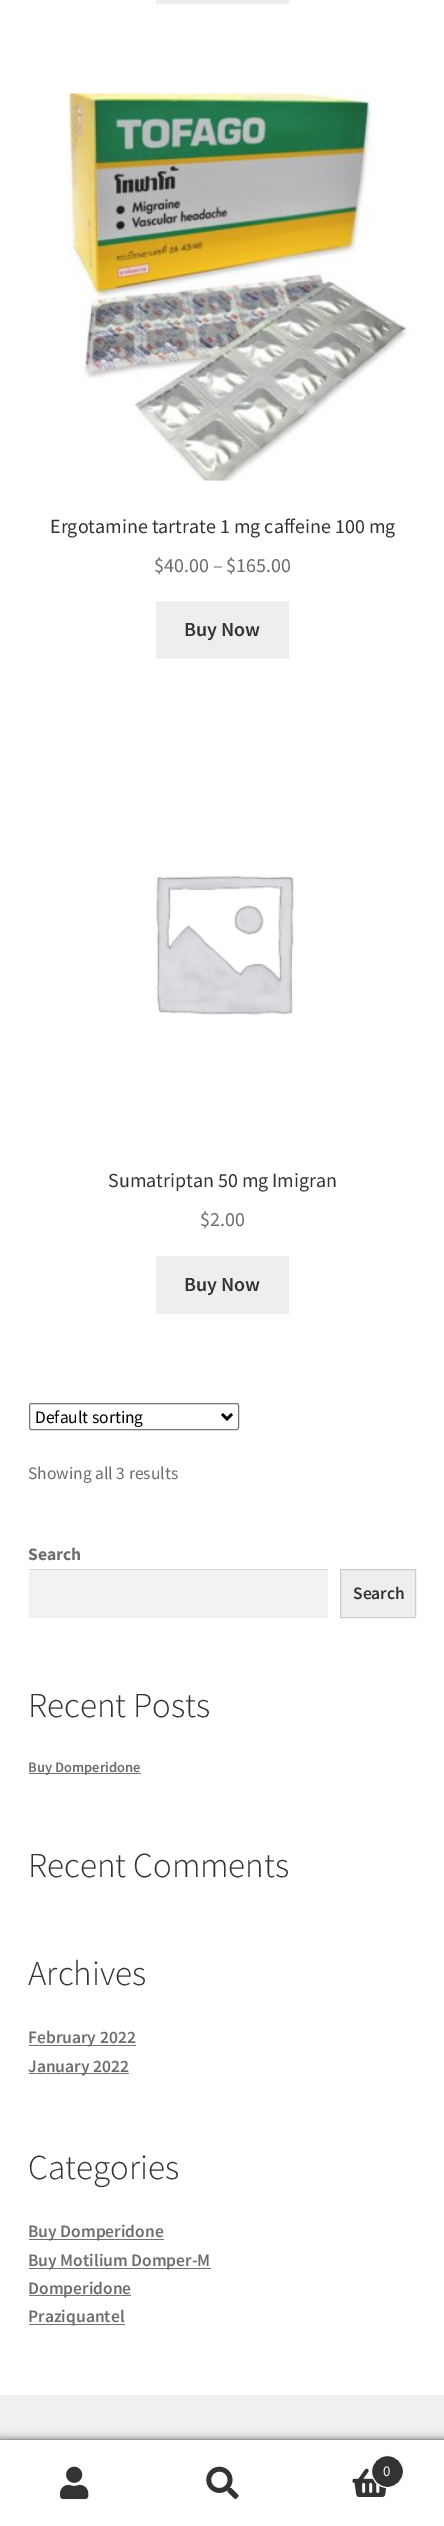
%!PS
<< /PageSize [444 2526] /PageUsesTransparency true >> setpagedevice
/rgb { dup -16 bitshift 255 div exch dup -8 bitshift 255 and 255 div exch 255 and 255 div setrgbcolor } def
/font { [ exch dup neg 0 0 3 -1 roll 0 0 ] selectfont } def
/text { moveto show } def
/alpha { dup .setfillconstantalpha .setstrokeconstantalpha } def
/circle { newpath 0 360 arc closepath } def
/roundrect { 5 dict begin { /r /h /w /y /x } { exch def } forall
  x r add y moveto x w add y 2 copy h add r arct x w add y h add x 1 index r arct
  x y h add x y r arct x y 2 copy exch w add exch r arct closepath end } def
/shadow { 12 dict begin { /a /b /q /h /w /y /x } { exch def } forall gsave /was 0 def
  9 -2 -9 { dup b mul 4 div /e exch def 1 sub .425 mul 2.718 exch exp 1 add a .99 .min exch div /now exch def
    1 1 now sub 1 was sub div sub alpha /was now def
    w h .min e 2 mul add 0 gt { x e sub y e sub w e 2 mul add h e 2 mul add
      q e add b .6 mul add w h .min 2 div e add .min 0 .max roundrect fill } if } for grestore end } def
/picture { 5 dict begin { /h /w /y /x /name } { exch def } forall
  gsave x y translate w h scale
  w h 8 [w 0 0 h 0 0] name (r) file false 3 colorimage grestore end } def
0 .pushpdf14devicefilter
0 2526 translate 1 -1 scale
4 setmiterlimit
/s1 { /SourceSansPro-Regular 20 font 16#333333 rgb } def
/s2 { /SourceSansPro-Regular 20 font 16#6D6D6D rgb } def
/s3 { /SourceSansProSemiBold-SemiBold 20 font 16#333333 rgb } def
/s4 { /SourceSansPro-Regular 17.5 font 16#000000 rgb } def
/s5 { /SourceSansPro-Regular 17.5 font 16#6D6D6D rgb } def
/s6 { /SourceSansPro-Bold 17.5 font 16#6D6D6D rgb } def
/s7 { /SourceSansProSemiBold-SemiBold 17.5 font 16#333333 rgb } def
/s8 { /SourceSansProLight-Light 35 font 16#333333 rgb } def
/s9 { /SourceSansProSemiBold-SemiBold 14.5 font 16#6D6D6D rgb } def
/s10 { /SourceSansProSemiBold-SemiBold 17.5 font 16#6D6D6D rgb } def
/s11 { /SourceSansPro-Regular 15 font 16#FFFFFF rgb } def
16#FFFFFF rgb
0 0 444 2526 rectfill
16#EEEEEE rgb
156 0 133 4 rectfill
(pic1.raw) 66 93 344 388 picture
s1
(Ergotamine tartrate 1 mg caffeine 100 mg) 50 533 text
s2
($40.00 – $165.00) 154 572 text
16#EEEEEE rgb
156 601 133 58 rectfill
s3
(Buy Now) 184 636 text
(pic2.raw) 156 875 138 140 picture
s1
(Sumatriptan 50 mg Imigran) 108 1187 text
s2
($2.00) 200 1226 text
16#EEEEEE rgb
156 1256 133 58 rectfill
s3
(Buy Now) 184 1291 text
16#767676 rgb
29.5 1403.5 209 26 2 roundrect stroke
16#000000 rgb
2.5 setlinewidth
222 1414 moveto 227 1419 lineto 232 1414 lineto stroke
s4
(Default sorting) 35 1423 text
s5
(Showing all 3 results) 28 1479 text
s6
(Search) 28 1560 text
16#F2F2F2 rgb
29 1570 299 48 rectfill
16#D4D4D4 rgb
29 1569 299 1 rectfill
16#EEEEEE rgb
340.5 1569.5 moveto 415.5 1569.5 lineto 415.5 1617.5 lineto 340.5 1617.5 lineto closepath gsave fill grestore
16#CCCCCC rgb
1 setlinewidth
stroke
s7
(Search) 353 1599 text
s8
(Recent Posts) 28 1717 text
16#727272 rgb
29 1773 112 1 rectfill
s9
(Buy Domperidone) 28 1772 text
s8
(Recent Comments) 28 1877 text
(Archives) 28 1985 text
16#727272 rgb
29 2045 107 1 rectfill
s10
(February 2022) 28 2043 text
16#727272 rgb
29 2073 100 1 rectfill
s10
(January 2022) 28 2072 text
s8
(Categories) 28 2179 text
16#727272 rgb
29 2239 135 1 rectfill
s10
(Buy Domperidone) 28 2237 text
16#727272 rgb
29 2268 182 1 rectfill
s10
(Buy Motilium Domper-M) 28 2266 text
16#727272 rgb
29 2295 102 1 rectfill
s10
(Domperidone) 28 2294 text
16#727272 rgb
29 2324 96 1 rectfill
s10
(Praziquantel) 28 2322 text
16#F0F0F0 rgb
0 2395 444 45 rectfill
16#000000 rgb
0 2440 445 86 0 4 0.7 shadow
16#FFFFFF rgb
0 2440 444 1 rectfill
0 2441 444 85 rectfill
(pic3.raw) 60 2466 29 34 picture
(pic4.raw) 206 2466 33 33 picture
(pic5.raw) 352 2468 35 29 picture
16#333333 rgb
387.5 2471.5 16 circle gsave fill grestore
16#FFFFFF rgb
stroke
s11
(0) 383 2476 text
.poppdf14devicefilter showpage
